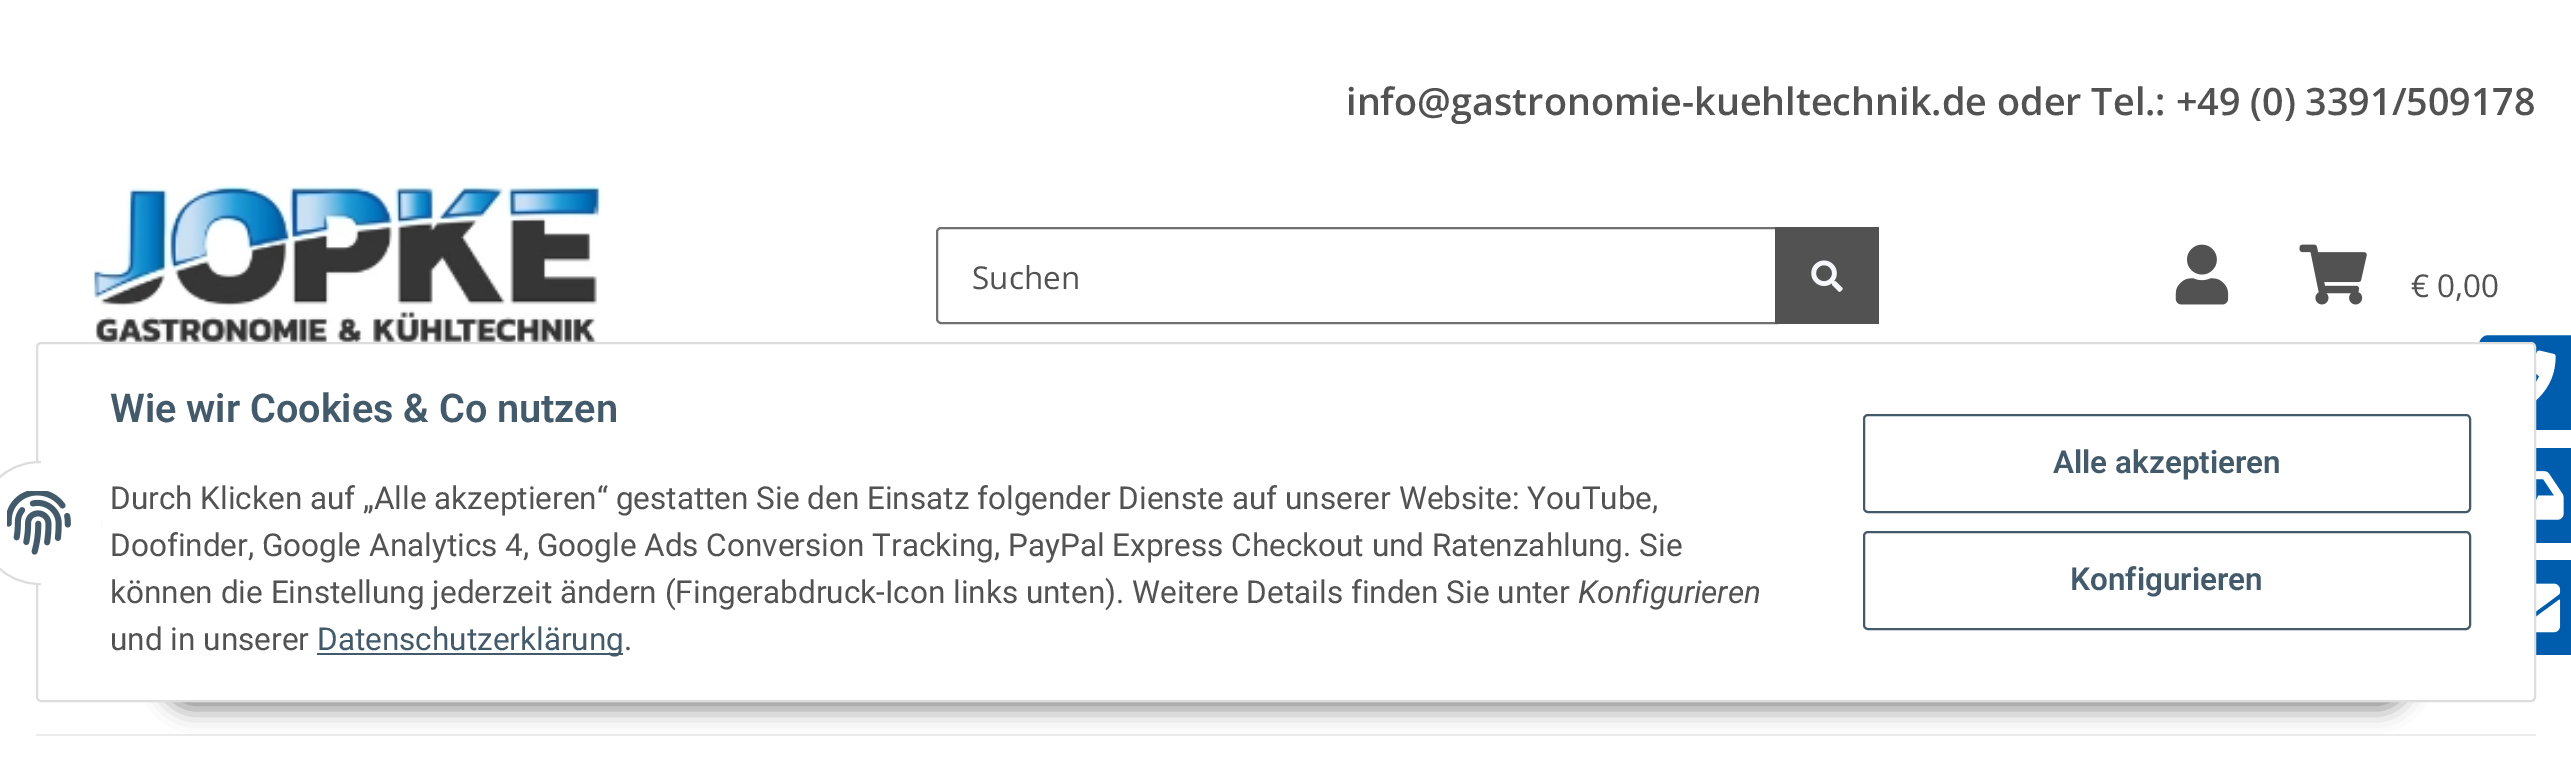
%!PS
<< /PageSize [2571 773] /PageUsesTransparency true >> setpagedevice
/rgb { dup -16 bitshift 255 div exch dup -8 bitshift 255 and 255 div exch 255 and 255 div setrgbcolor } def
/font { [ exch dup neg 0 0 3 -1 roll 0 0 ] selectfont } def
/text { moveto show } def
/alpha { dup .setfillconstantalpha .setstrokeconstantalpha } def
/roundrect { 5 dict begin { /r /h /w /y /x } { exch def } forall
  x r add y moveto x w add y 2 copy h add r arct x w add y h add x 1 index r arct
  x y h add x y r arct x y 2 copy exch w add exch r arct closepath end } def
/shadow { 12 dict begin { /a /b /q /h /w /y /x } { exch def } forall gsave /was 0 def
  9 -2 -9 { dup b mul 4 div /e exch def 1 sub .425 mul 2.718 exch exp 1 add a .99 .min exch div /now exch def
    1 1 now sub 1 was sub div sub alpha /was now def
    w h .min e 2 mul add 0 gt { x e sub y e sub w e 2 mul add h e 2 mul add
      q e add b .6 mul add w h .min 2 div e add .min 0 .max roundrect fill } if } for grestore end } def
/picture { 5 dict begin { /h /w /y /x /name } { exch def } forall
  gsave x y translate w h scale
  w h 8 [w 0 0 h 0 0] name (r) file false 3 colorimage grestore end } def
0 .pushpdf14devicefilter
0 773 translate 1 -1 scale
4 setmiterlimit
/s1 { /OpenSans-SemiBold 37.75 font 16#525252 rgb } def
/s2 { /OpenSans-Regular 31.5 font 16#525252 rgb } def
/s3 { /Roboto-SemiBold 39.6 font 16#435A6B rgb } def
/s4 { /Roboto-Regular 31.5 font 16#525252 rgb } def
/s5 { /Roboto-Italic 31.5 font 16#525252 rgb } def
/s6 { /Roboto-Regular 31.5 font 16#435A6B rgb } def
/s7 { /Roboto-SemiBold 31.5 font 16#435A6B rgb } def
16#FFFFFF rgb
0 0 2571 773 rectfill
s1
(info@gastronomie-kuehltechnik.de) 1346 115 text
(oder Tel.: +49 \(0\) 3391/509178) 1997 115 text
(pic1.raw) 92 186 509 156 picture
16#707070 rgb
2 setlinewidth
941 228 moveto 1777 228 lineto 1777 323 lineto 941 323 lineto 939 323 937 321 937 319 curveto 937 232 lineto 937 230 939 228 941 228 curveto closepath stroke
s2
(Suchen) 972 289 text
1775 227 104 97 rectfill
(pic2.raw) 1811 260 32 32 picture
(pic3.raw) 2175 244 54 61 picture
(pic4.raw) 2299 244 68 61 picture
(€ 0,00) 2411 297 text
16#005DAD rgb
2488 334 moveto 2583 334 lineto 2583 431 lineto 2488 431 lineto 2482.5 431 2478 426.5 2478 421 curveto 2478 344 lineto 2478 338.5 2482.5 334 2488 334 curveto closepath gsave fill grestore
16#FFFFFF rgb
stroke
(pic5.raw) 2536 350 20 51 picture
16#005DAD rgb
2536 448 35 95 rectfill
(pic6.raw) 2536 471 28 49 picture
2536 560 35 95 rectfill
(pic7.raw) 2536 583 25 50 picture
16#EBEBEB rgb
36 734 2500 2 rectfill
16#000000 rgb
162 637 2248 72 36 11 0.45 shadow
16#FFFFFF rgb
37 343 2498 358 4 roundrect gsave fill grestore
16#DDDDDD rgb
stroke
16#FFFFFF rgb
-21 462 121 122 60.5 roundrect gsave fill grestore
16#DDDDDD rgb
stroke
16#FFFFFF rgb
41 461 60 124 rectfill
(pic8.raw) 7 491 64 64 picture
s3
(Wie wir Cookies & Co nutzen) 110 422 text
s4
(Durch Klicken auf „Alle akzeptieren“ gestatten Sie den Einsatz folgender Dienste auf unserer Website: YouTube,) 110 509 text
(Doofinder, Google Analytics 4, Google Ads Conversion Tracking, PayPal Express Checkout und Ratenzahlung. Sie) 110 556 text
(können die Einstellung jederzeit ändern \(Fingerabdruck-Icon links unten\). Weitere Details finden Sie unter) 110 603 text
s5
(Konfigurieren) 1578 603 text
s4
(und in unserer) 110 650 text
16#435A6B rgb
317 653 306 2 rectfill
(Datenschutzerklärung) 317 650 text
s4
(.) 624 650 text
16#435A6B rgb
1864 415 606 97 4 roundrect stroke
s7
(Alle akzeptieren) 2053 473 text
1864 532 606 97 4 roundrect stroke
(Konfigurieren) 2070 590 text
.poppdf14devicefilter showpage
